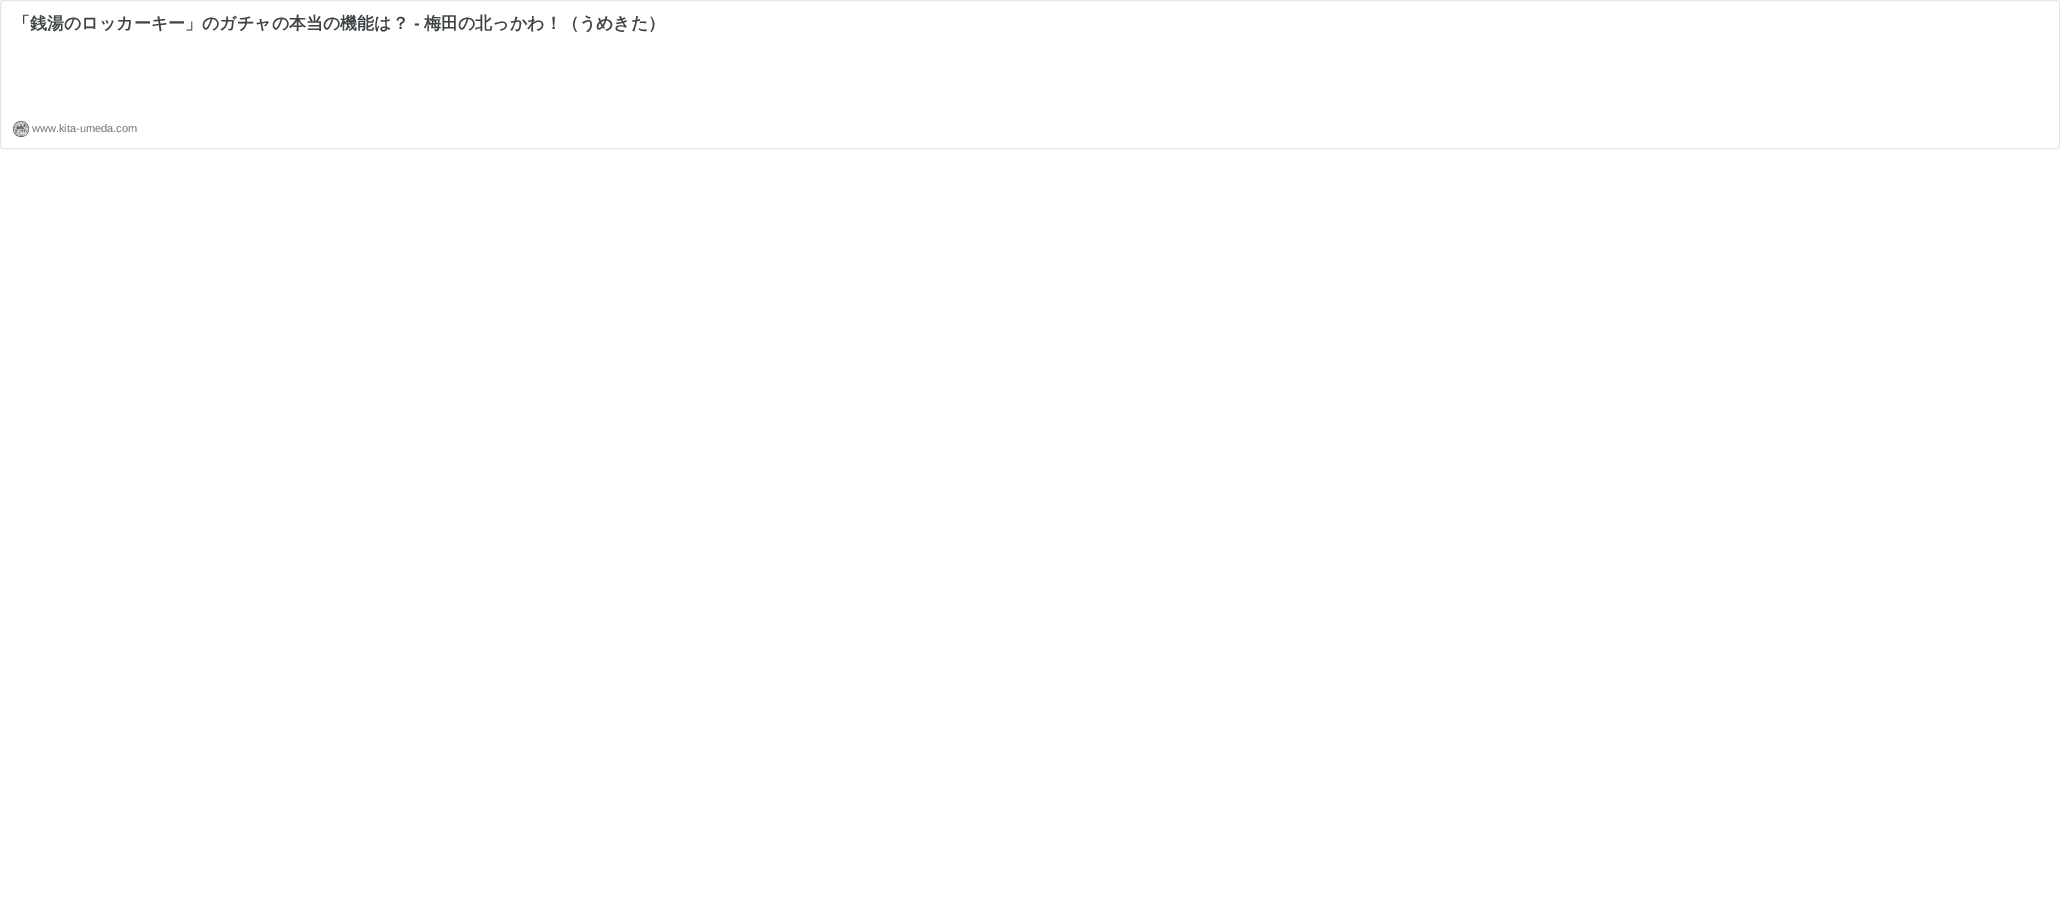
%!PS
<< /PageSize [2060 898] >> setpagedevice
/rgb { dup -16 bitshift 255 div exch dup -8 bitshift 255 and 255 div exch 255 and 255 div setrgbcolor } def
/font { [ exch dup neg 0 0 3 -1 roll 0 0 ] selectfont } def
/text { moveto show } def
/roundrect { 5 dict begin { /r /h /w /y /x } { exch def } forall
  x r add y moveto x w add y 2 copy h add r arct x w add y h add x 1 index r arct
  x y h add x y r arct x y 2 copy exch w add exch r arct closepath end } def
/picture { 5 dict begin { /h /w /y /x /name } { exch def } forall
  gsave x y translate w h scale
  w h 8 [w 0 0 h 0 0] name (r) file false 3 colorimage grestore end } def
0 898 translate 1 -1 scale
4 setmiterlimit
/s1 { /WenQuanYiZenHei-Bold 17 font 16#3D4245 rgb } def
/s2 { /LiberationSans-Bold 17 font 16#3D4245 rgb } def
/s3 { /LiberationSans-Regular 11 font 16#6B7377 rgb } def
16#FFFFFF rgb
0 0 2060 898 rectfill
16#E6E6E6 rgb
0.5 0.5 2059 148 2.5 roundrect stroke
s1
(「銭湯のロッカーキー」のガチャの本当の機能は？) 13 29 text
s2
(-) 414 29 text
s1
(梅田の北っかわ！（うめきた）) 424 29 text
(pic1.raw) 13 121 16 16 picture
s3
(www.kita-umeda.com) 32 132 text
showpage
